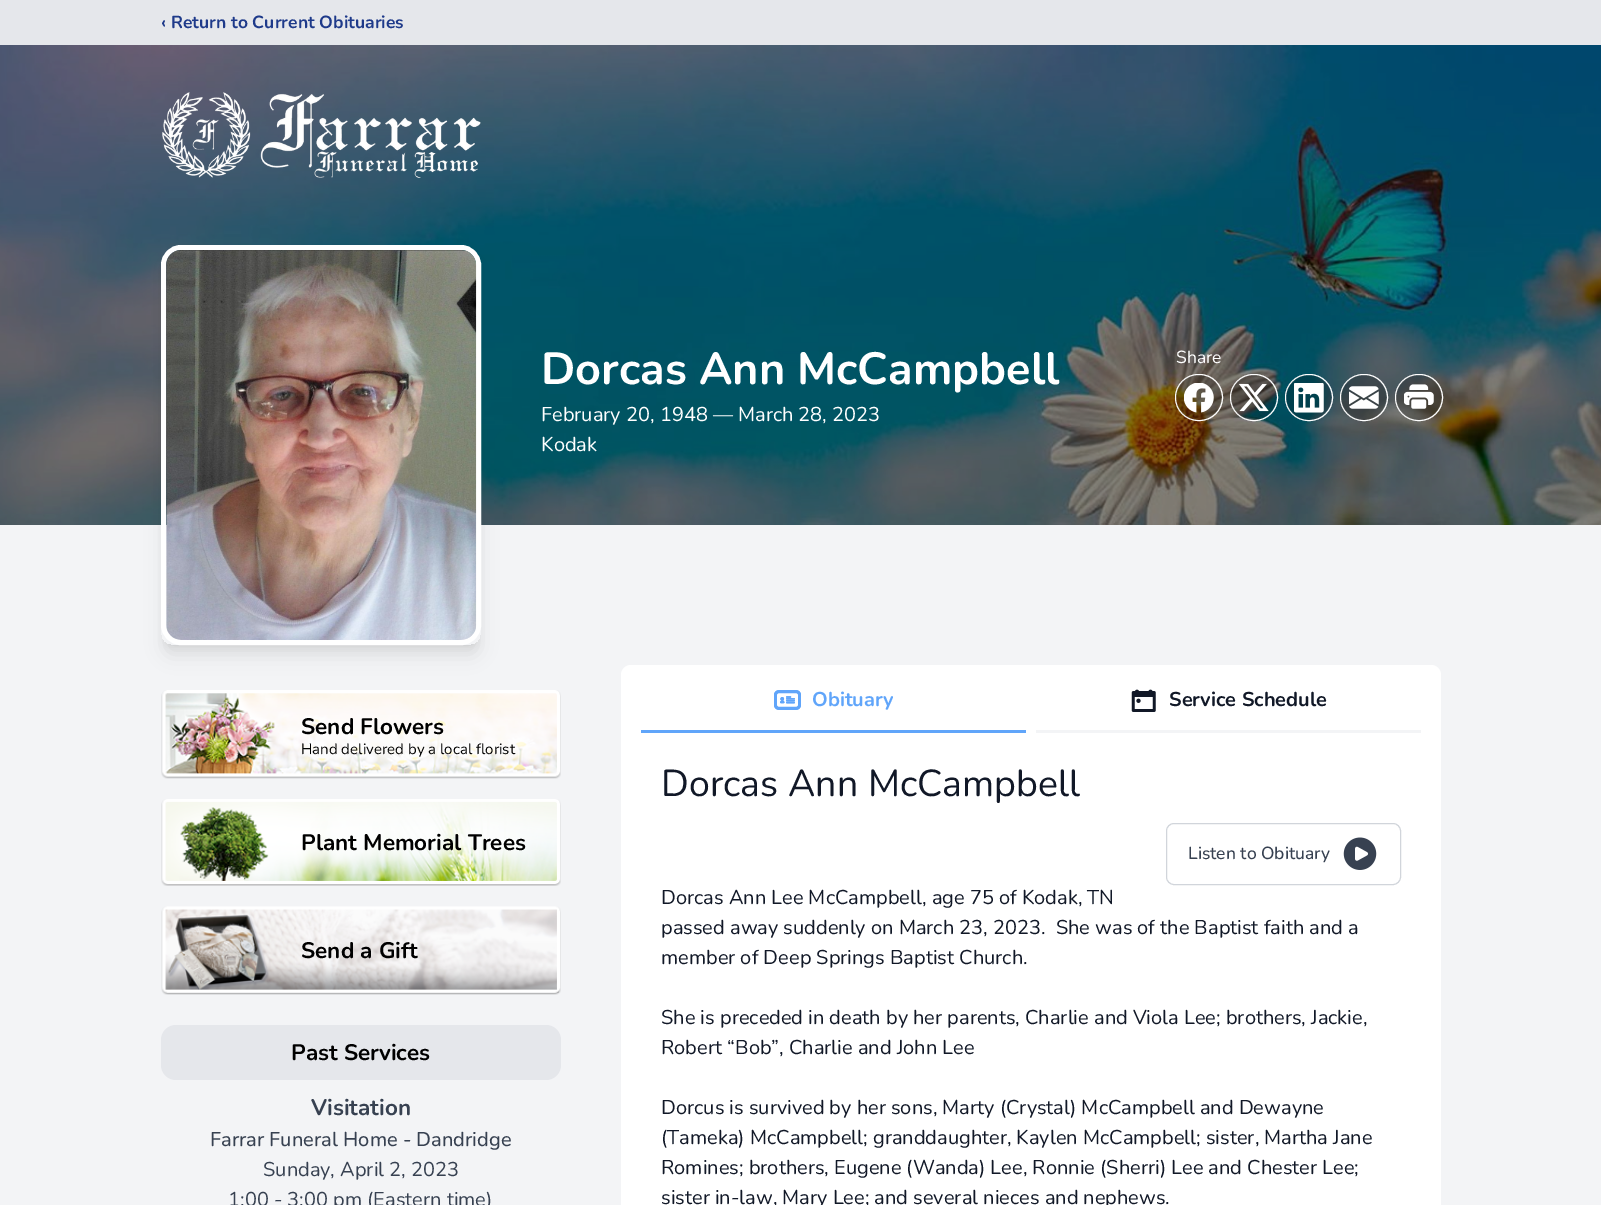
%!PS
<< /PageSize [1601 1205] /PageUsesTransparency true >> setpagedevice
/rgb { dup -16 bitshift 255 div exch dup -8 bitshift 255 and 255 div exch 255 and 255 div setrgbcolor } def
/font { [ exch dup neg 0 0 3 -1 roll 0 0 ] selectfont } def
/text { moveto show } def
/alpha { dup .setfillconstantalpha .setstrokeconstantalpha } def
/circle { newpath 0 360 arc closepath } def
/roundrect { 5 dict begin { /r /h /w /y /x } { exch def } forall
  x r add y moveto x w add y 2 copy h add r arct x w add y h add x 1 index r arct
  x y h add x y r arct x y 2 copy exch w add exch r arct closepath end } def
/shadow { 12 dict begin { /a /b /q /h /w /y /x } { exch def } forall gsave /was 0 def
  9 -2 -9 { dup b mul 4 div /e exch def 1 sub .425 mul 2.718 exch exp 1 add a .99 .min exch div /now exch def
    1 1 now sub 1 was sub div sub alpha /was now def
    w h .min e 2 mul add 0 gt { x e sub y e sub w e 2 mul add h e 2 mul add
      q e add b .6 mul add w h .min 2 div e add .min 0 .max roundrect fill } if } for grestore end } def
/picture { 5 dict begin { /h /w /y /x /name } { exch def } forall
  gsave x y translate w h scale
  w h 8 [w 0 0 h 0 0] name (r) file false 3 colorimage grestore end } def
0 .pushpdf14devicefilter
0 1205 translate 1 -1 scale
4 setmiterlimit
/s1 { /Nunito-Bold 17.5 font 16#1E3A8A rgb } def
/s2 { /Nunito-Bold 45 font 16#FFFFFF rgb } def
/s3 { /Nunito-Regular 20 font 16#FFFFFF rgb } def
/s4 { /Nunito-Regular 17.5 font 16#FFFFFF rgb } def
/s5 { /Nunito-Bold 22.5 font 16#000000 rgb } def
/s6 { /Nunito-Regular 15 font 16#000000 rgb } def
/s7 { /Nunito-Bold 22.5 font 16#374151 rgb } def
/s8 { /Nunito-Medium 20 font 16#374151 rgb } def
/s9 { /Nunito-Regular 20 font 16#374151 rgb } def
/s10 { /Nunito-Bold 20 font 16#60A5FA rgb } def
/s11 { /Nunito-Bold 20 font 16#111827 rgb } def
/s12 { /Nunito-Regular 37.5 font 16#111827 rgb } def
/s13 { /Nunito-Medium 17.5 font 16#374151 rgb } def
/s14 { /Nunito-Regular 20 font 16#111827 rgb } def
16#F3F4F6 rgb
0 0 1601 1205 rectfill
16#E5E7EB rgb
0 0 1601 45 rectfill
s1
(‹ Return to Current Obituaries) 161 28 text
(pic1.raw) 0 45 1601 480 picture
(pic2.raw) 162 92 319 86 picture
gsave
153 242 moveto 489 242 lineto 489 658 lineto 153 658 lineto closepath 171 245 moveto 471 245 lineto 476.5 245 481 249.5 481 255 curveto 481 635 lineto 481 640.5 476.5 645 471 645 curveto 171 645 lineto 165.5 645 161 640.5 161 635 curveto 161 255 lineto 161 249.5 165.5 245 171 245 curveto closepath eoclip newpath
16#000000 rgb
166 255 310 390 5 4 0.1 shadow
grestore
gsave
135 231 moveto 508 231 lineto 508 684 lineto 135 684 lineto closepath 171 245 moveto 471 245 lineto 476.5 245 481 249.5 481 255 curveto 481 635 lineto 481 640.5 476.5 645 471 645 curveto 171 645 lineto 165.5 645 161 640.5 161 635 curveto 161 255 lineto 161 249.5 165.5 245 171 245 curveto closepath eoclip newpath
16#000000 rgb
165 261 313 393 6 9.5 0.1 shadow
grestore
16#FFFFFF rgb
5 setlinewidth
163.5 247.5 315 395 17.5 roundrect stroke
(pic3.raw) 166 250 311 390 picture
s2
(Dorcas Ann McCampbell) 541 384 text
s3
(February 20, 1948 — March 28, 2023) 541 421 text
(Kodak) 541 451 text
s4
(Share) 1176 363 text
1 setlinewidth
1175.5 374.5 47 46 23 roundrect stroke
0.2 alpha
16#000000 rgb
1198.5 397.5 22.5 circle fill
1 alpha
(pic4.raw) 1184 383 30 30 picture
16#FFFFFF rgb
1230.5 374.5 47 46 23 roundrect stroke
0.2 alpha
16#000000 rgb
1253.5 397.5 22.5 circle fill
1 alpha
(pic5.raw) 1239 383 30 29 picture
16#FFFFFF rgb
1285.5 374.5 47 46 23 roundrect stroke
0.2 alpha
16#000000 rgb
1308.5 397.5 22.5 circle fill
1 alpha
(pic6.raw) 1294 383 30 30 picture
16#FFFFFF rgb
1340.5 374.5 47 46 23 roundrect stroke
0.2 alpha
16#000000 rgb
1363.5 397.5 22.5 circle fill
1 alpha
(pic7.raw) 1349 386 30 23 picture
16#FFFFFF rgb
1395.5 374.5 47 46 23 roundrect stroke
0.2 alpha
16#000000 rgb
1418.5 397.5 22.5 circle fill
1 alpha
(pic8.raw) 1404 384 30 25 picture
(pic9.raw) 161 690 400 89 picture
s5
(Send Flowers) 301 734 text
s6
(Hand delivered by a local florist) 301 754 text
(pic10.raw) 161 799 400 87 picture
s5
(Plant Memorial Trees) 301 850 text
(pic11.raw) 161 906 400 89 picture
(Send a Gift) 301 958 text
16#E5E7EB rgb
161 1025 400 55 15 roundrect fill
s5
(Past Services) 291 1060 text
s7
(Visitation) 311 1115 text
s8
(Farrar Funeral Home - Dandridge) 210 1146 text
s9
(Sunday, April 2, 2023) 263 1176 text
(1:00 - 3:00 pm \(Eastern time\)) 228 1206 text
16#FFFFFF rgb
621 665 820 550 10 roundrect fill
16#60A5FA rgb
641 730 385 3 rectfill
(pic12.raw) 774 690 27 20 picture
s10
(Obituary) 812 706 text
16#F3F4F6 rgb
1036 730 385 3 rectfill
(pic13.raw) 1131 689 25 23 picture
s11
(Service Schedule) 1169 706 text
s12
(Dorcas Ann McCampbell) 661 796 text
16#D1D5DB rgb
1166.5 823.5 234 61 7.5 roundrect stroke
s13
(Listen to Obituary) 1188 859 text
(pic14.raw) 1343 837 34 33 picture
s14
(Dorcas Ann Lee McCampbell, age 75 of Kodak, TN) 661 904 text
(passed away suddenly on March 23, 2023.  She was of the Baptist faith and a) 661 934 text
(member of Deep Springs Baptist Church.) 661 964 text
(She is preceded in death by her parents, Charlie and Viola Lee; brothers, Jackie,) 661 1024 text
(Robert “Bob”, Charlie and John Lee) 661 1054 text
(Dorcus is survived by her sons, Marty \(Crystal\) McCampbell and Dewayne) 661 1114 text
(\(Tameka\) McCampbell; granddaughter, Kaylen McCampbell; sister, Martha Jane) 661 1144 text
(Romines; brothers, Eugene \(Wanda\) Lee, Ronnie \(Sherri\) Lee and Chester Lee;) 661 1174 text
(sister in-law, Mary Lee; and several nieces and nephews.) 661 1204 text
.poppdf14devicefilter showpage
